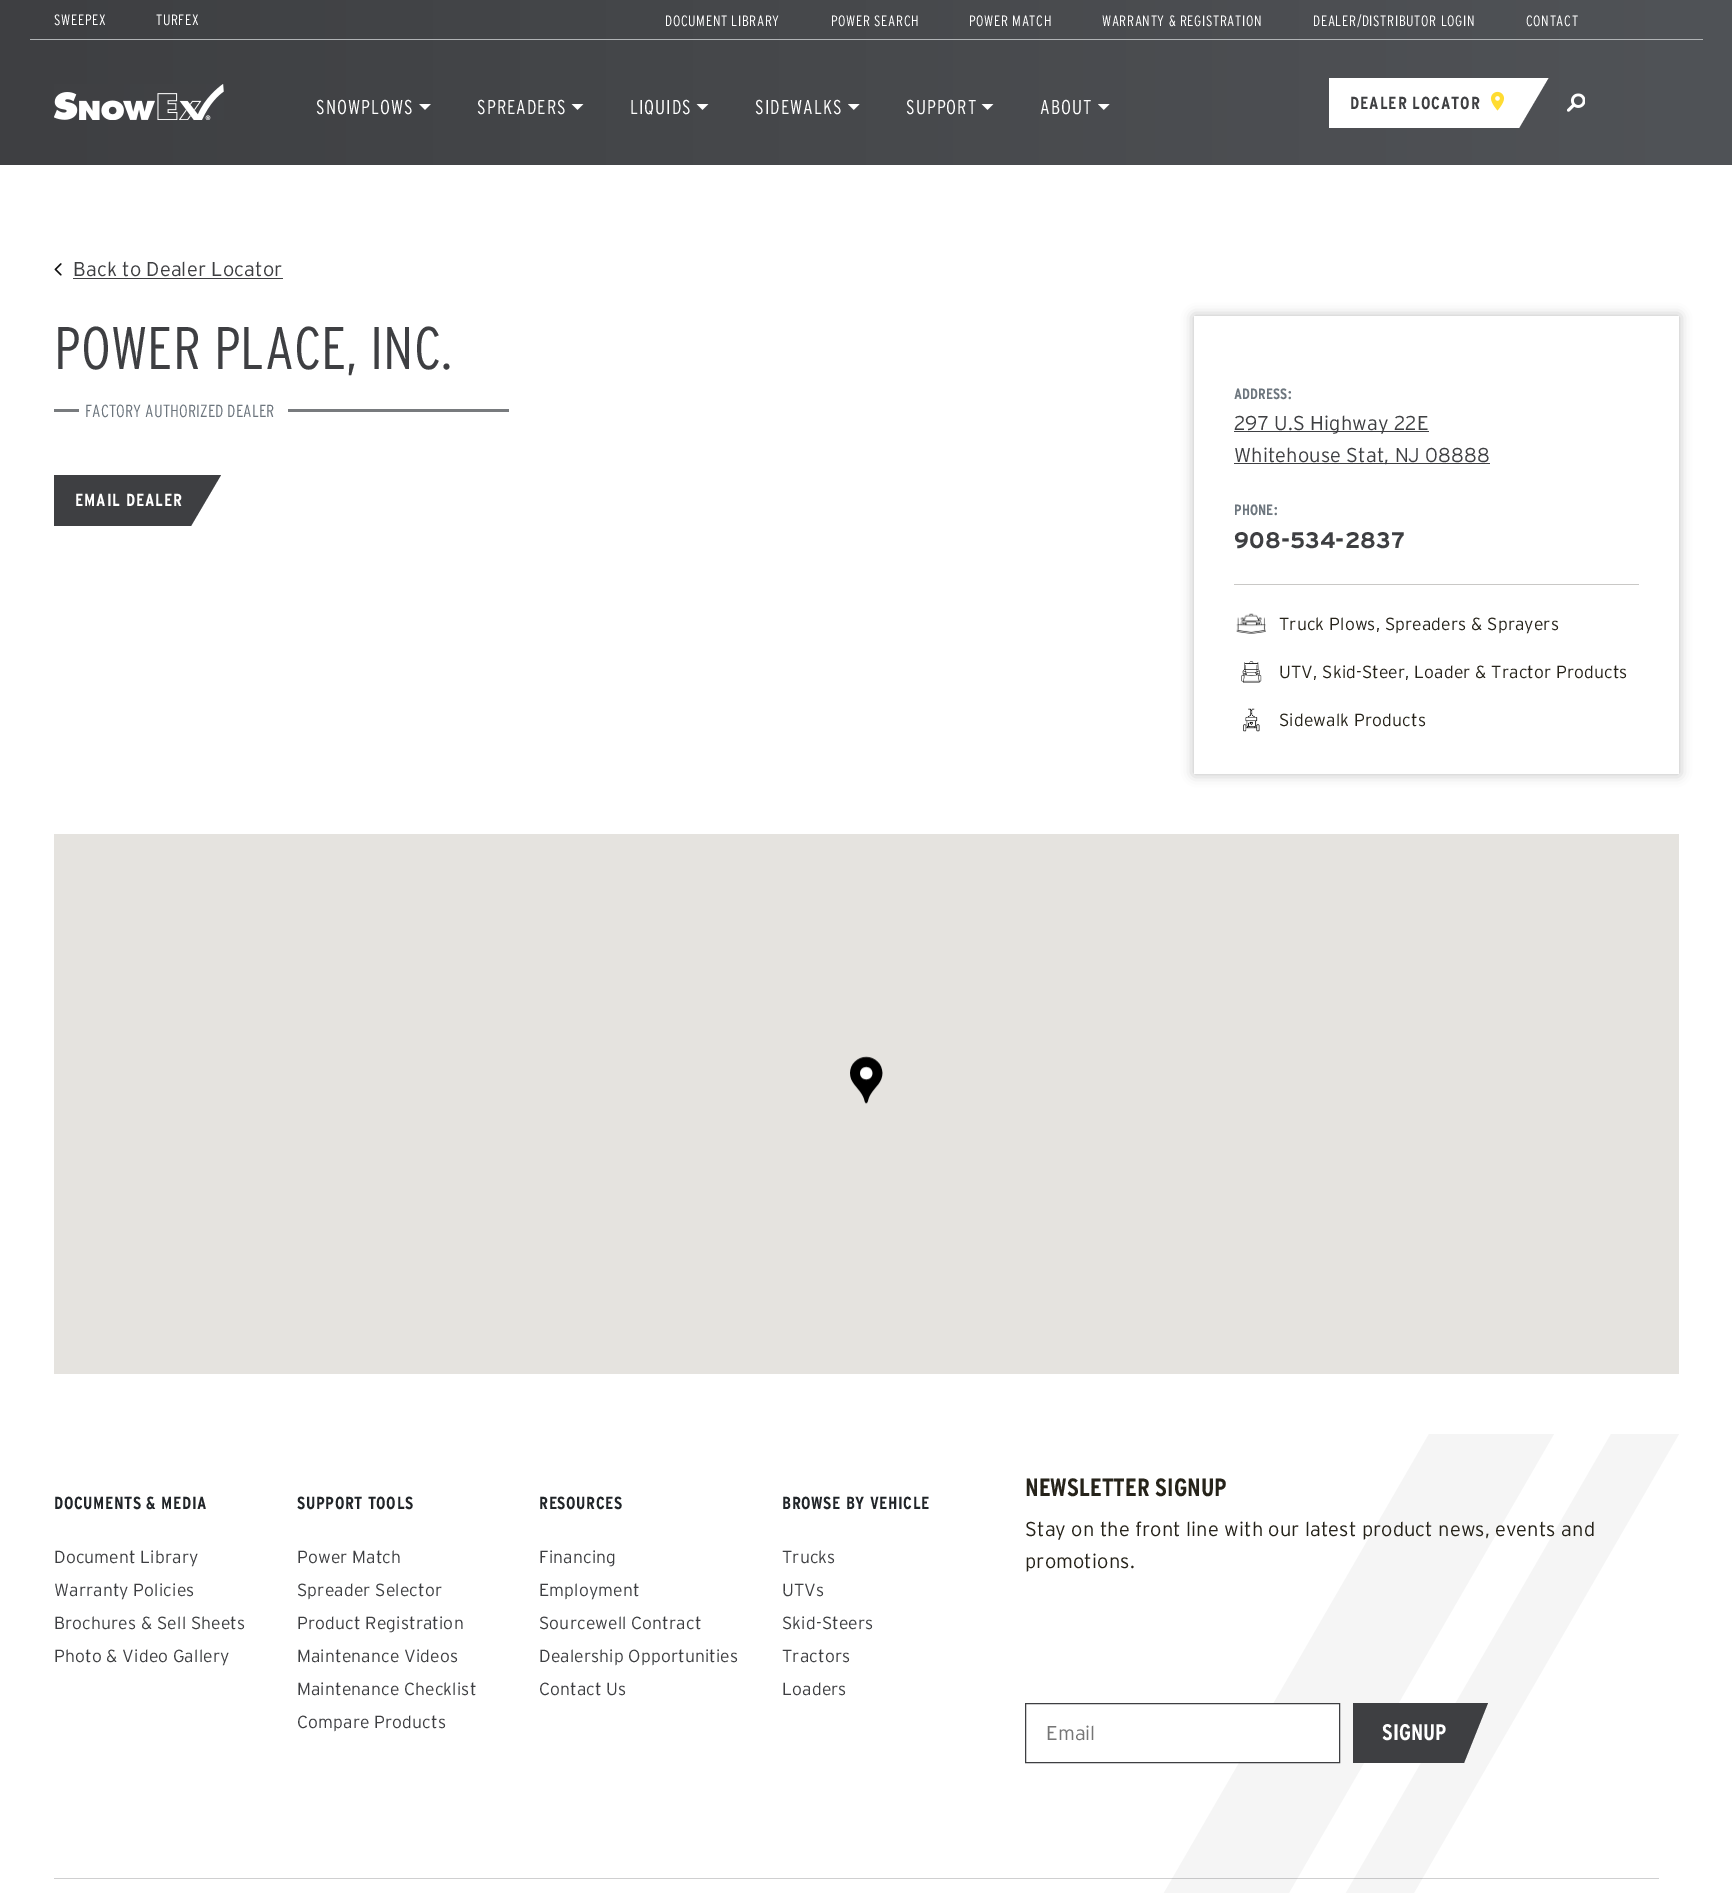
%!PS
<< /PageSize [1732 1893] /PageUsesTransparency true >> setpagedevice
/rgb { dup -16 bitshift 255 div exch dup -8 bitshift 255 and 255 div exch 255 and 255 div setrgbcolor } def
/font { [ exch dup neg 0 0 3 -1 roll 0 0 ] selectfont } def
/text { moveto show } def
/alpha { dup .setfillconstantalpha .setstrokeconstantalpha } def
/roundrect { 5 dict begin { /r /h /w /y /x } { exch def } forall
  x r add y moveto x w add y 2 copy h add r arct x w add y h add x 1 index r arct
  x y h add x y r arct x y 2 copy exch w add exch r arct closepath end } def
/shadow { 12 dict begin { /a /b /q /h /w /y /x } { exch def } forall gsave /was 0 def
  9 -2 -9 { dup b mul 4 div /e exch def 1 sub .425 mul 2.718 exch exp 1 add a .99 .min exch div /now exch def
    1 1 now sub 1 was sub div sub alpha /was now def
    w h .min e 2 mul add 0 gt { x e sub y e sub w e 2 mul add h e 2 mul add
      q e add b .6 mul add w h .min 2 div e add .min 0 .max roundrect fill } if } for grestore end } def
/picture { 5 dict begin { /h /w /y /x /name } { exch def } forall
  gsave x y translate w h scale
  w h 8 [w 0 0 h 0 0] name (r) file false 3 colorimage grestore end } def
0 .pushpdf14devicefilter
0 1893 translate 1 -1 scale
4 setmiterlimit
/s1 { /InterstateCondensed-Bold 25 font 16#26231A rgb } def
/s2 { /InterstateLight-Light 20 font 16#757575 rgb } def
/s3 { /InterstateCondensed-Bold 22.5 font 16#FFFFFF rgb } def
16#FFFFFF rgb
0 0 1732 1893 rectfill
gsave 0 0 moveto 1732 0 lineto 1732 165 lineto 0 165 lineto closepath clip newpath
<< /ShadingType 2 /ColorSpace /DeviceRGB /Coords [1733 83 0 82] /Extend [true true] /Function << /FunctionType 2 /Domain [0 1] /C0 [0.314 0.325 0.341] /C1 [0.243 0.247 0.259] /N 1 >> >> shfill grestore
/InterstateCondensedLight-Light 15 font
54 25 moveto 0.6 0 (SWEEPEX) ashow
156 25 moveto 0.6 0 (TURFEX) ashow
665 26 moveto 0.6 0 (DOCUMENT LIBRARY) ashow
831 26 moveto 0.6 0 (POWER SEARCH) ashow
969 26 moveto 0.6 0 (POWER MATCH) ashow
1102 26 moveto 0.6 0 (WARRANTY & REGISTRATION) ashow
1313 26 moveto 0.6 0 (DEALER/DISTRIBUTOR LOGIN) ashow
1526 26 moveto 0.6 0 (CONTACT) ashow
16#B0B3B5 rgb
30 39 1673 1 rectfill
(pic1.raw) 54 84 170 36 picture
/InterstateCondensedLight-Light 20 font
16#FFFFFF rgb
316 114 moveto 1 0 (SNOWPLOWS) ashow
(pic2.raw) 419 104 12 6 picture
477 114 moveto 1 0 (SPREADERS) ashow
(pic3.raw) 571 104 13 6 picture
630 114 moveto 1 0 (LIQUIDS) ashow
(pic4.raw) 696 104 13 6 picture
755 114 moveto 1 0 (SIDEWALKS) ashow
(pic5.raw) 848 104 12 6 picture
906 114 moveto 1 0 (SUPPORT) ashow
(pic6.raw) 981 104 13 6 picture
1040 114 moveto 1 0 (ABOUT) ashow
(pic7.raw) 1098 104 12 6 picture
gsave
1329 78 220 51 rectclip
1329 77 moveto 1549 77 lineto 1519 128 lineto 1300 128 lineto closepath fill
grestore
/InterstateCondensed-Bold 17.5 font
16#3E3F42 rgb
1350 109 moveto 0.9 0 (DEALER LOCATOR) ashow
(pic8.raw) 1490 91 15 20 picture
(pic9.raw) 1567 93 18 19 picture
(pic10.raw) 54 263 8 13 picture
/InterstateLight-Light 20 font
73 276 moveto 0.12 0 (Back to Dealer Locator) ashow
73 278 210 1 rectfill
/InterstateCondensedLight-Light 60 font
54 369 moveto 0.12 0 (POWER PLACE, INC.) ashow
16#787B7E rgb
54 409 25 3 rectfill
/InterstateCondensedLight-Light 17.5 font
16#6C757D rgb
85 417 moveto 0.12 0 (FACTORY AUTHORIZED DEALER) ashow
16#787B7E rgb
288 409 221 3 rectfill
gsave
54 475 167 51 rectclip
16#3E3F42 rgb
54 475 moveto 221 475 lineto 191 526 lineto 24 526 lineto closepath fill
grestore
/InterstateCondensed-Bold 17.5 font
16#FFFFFF rgb
75 506 moveto 0.9 0 (EMAIL DEALER) ashow
16#000000 rgb
1194 316 485 458 0 6 0.26 shadow
16#FFFFFF rgb
1194 316 485 458 rectfill
/InterstateCondensed-Bold 15 font
16#6C757D rgb
1234 399 moveto 0.12 0 (ADDRESS:) ashow
16#3E3F42 rgb
1234 431 195 1 rectfill
/InterstateLight-Light 20 font
1234 430 moveto 0.12 0 (297 U.S Highway 22E) ashow
1234 463 256 1 rectfill
1234 462 moveto 0.12 0 (Whitehouse Stat, NJ 08888) ashow
/InterstateCondensed-Bold 15 font
16#6C757D rgb
1234 515 moveto 0.12 0 (PHONE:) ashow
/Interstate-Bold 22.5 font
16#3E3F42 rgb
1234 548 moveto 0.12 0 (908-534-2837) ashow
16#C9C8C6 rgb
1234 584 405 1 rectfill
(pic11.raw) 1236 613 30 21 picture
/InterstateLight-Light 17.5 font
16#26231A rgb
1279 630 moveto 0.12 0 (Truck Plows, Spreaders & Sprayers) ashow
(pic12.raw) 1241 661 21 22 picture
1279 678 moveto 0.12 0 (UTV, Skid-Steer, Loader & Tractor Products) ashow
(pic13.raw) 1243 708 17 24 picture
1279 726 moveto 0.12 0 (Sidewalk Products) ashow
16#E5E3DF rgb
54 834 1625 540 rectfill
(pic14.raw) 850 1056 33 48 picture
16#F5F5F5 rgb
1429 1434 moveto 1554 1434 lineto 1204 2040 lineto 1079 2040 lineto closepath fill
1611 1434 moveto 1679 1434 lineto 1329 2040 lineto 1261 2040 lineto closepath fill
/InterstateCondensed-Bold 17.5 font
16#212529 rgb
54 1509 moveto 0.6 0 (DOCUMENTS & MEDIA) ashow
/InterstateLight-Light 17.5 font
16#3E3F42 rgb
54 1563 moveto 0.12 0 (Document Library) ashow
54 1596 moveto 0.12 0 (Warranty Policies) ashow
54 1629 moveto 0.12 0 (Brochures & Sell Sheets) ashow
54 1662 moveto 0.12 0 (Photo & Video Gallery) ashow
/InterstateCondensed-Bold 17.5 font
16#212529 rgb
297 1509 moveto 0.6 0 (SUPPORT TOOLS) ashow
/InterstateLight-Light 17.5 font
16#3E3F42 rgb
297 1563 moveto 0.12 0 (Power Match) ashow
297 1596 moveto 0.12 0 (Spreader Selector) ashow
297 1629 moveto 0.12 0 (Product Registration) ashow
297 1662 moveto 0.12 0 (Maintenance Videos) ashow
297 1695 moveto 0.12 0 (Maintenance Checklist) ashow
297 1728 moveto 0.12 0 (Compare Products) ashow
/InterstateCondensed-Bold 17.5 font
16#212529 rgb
539 1509 moveto 0.6 0 (RESOURCES) ashow
/InterstateLight-Light 17.5 font
16#3E3F42 rgb
539 1563 moveto 0.12 0 (Financing) ashow
539 1596 moveto 0.12 0 (Employment) ashow
539 1629 moveto 0.12 0 (Sourcewell Contract) ashow
539 1662 moveto 0.12 0 (Dealership Opportunities) ashow
539 1695 moveto 0.12 0 (Contact Us) ashow
/InterstateCondensed-Bold 17.5 font
16#212529 rgb
782 1509 moveto 0.6 0 (BROWSE BY VEHICLE) ashow
/InterstateLight-Light 17.5 font
16#3E3F42 rgb
782 1563 moveto 0.12 0 (Trucks) ashow
782 1596 moveto 0.12 0 (UTVs) ashow
782 1629 moveto 0.12 0 (Skid-Steers) ashow
782 1662 moveto 0.12 0 (Tractors) ashow
782 1695 moveto 0.12 0 (Loaders) ashow
s1
(NEWSLETTER SIGNUP) 1025 1496 text
/InterstateLight-Light 20 font
1025 1536 moveto 0.12 0 (Stay on the front line with our latest product news, events and) ashow
1025 1568 moveto 0.12 0 (promotions.) ashow
16#FFFFFF rgb
1240 1704 99 58 rectfill
16#3E3F42 rgb
1025.5 1703.5 314 59 rectstroke
s2
(Email) 1046 1740 text
16#3E3F42 rgb
1353 1703 moveto 1488 1703 lineto 1464 1763 lineto 1353 1763 lineto closepath fill
s3
(SIGNUP) 1382 1740 text
0.25 alpha
16#3E3F42 rgb
54 1878 1605 1 rectfill
.poppdf14devicefilter showpage
